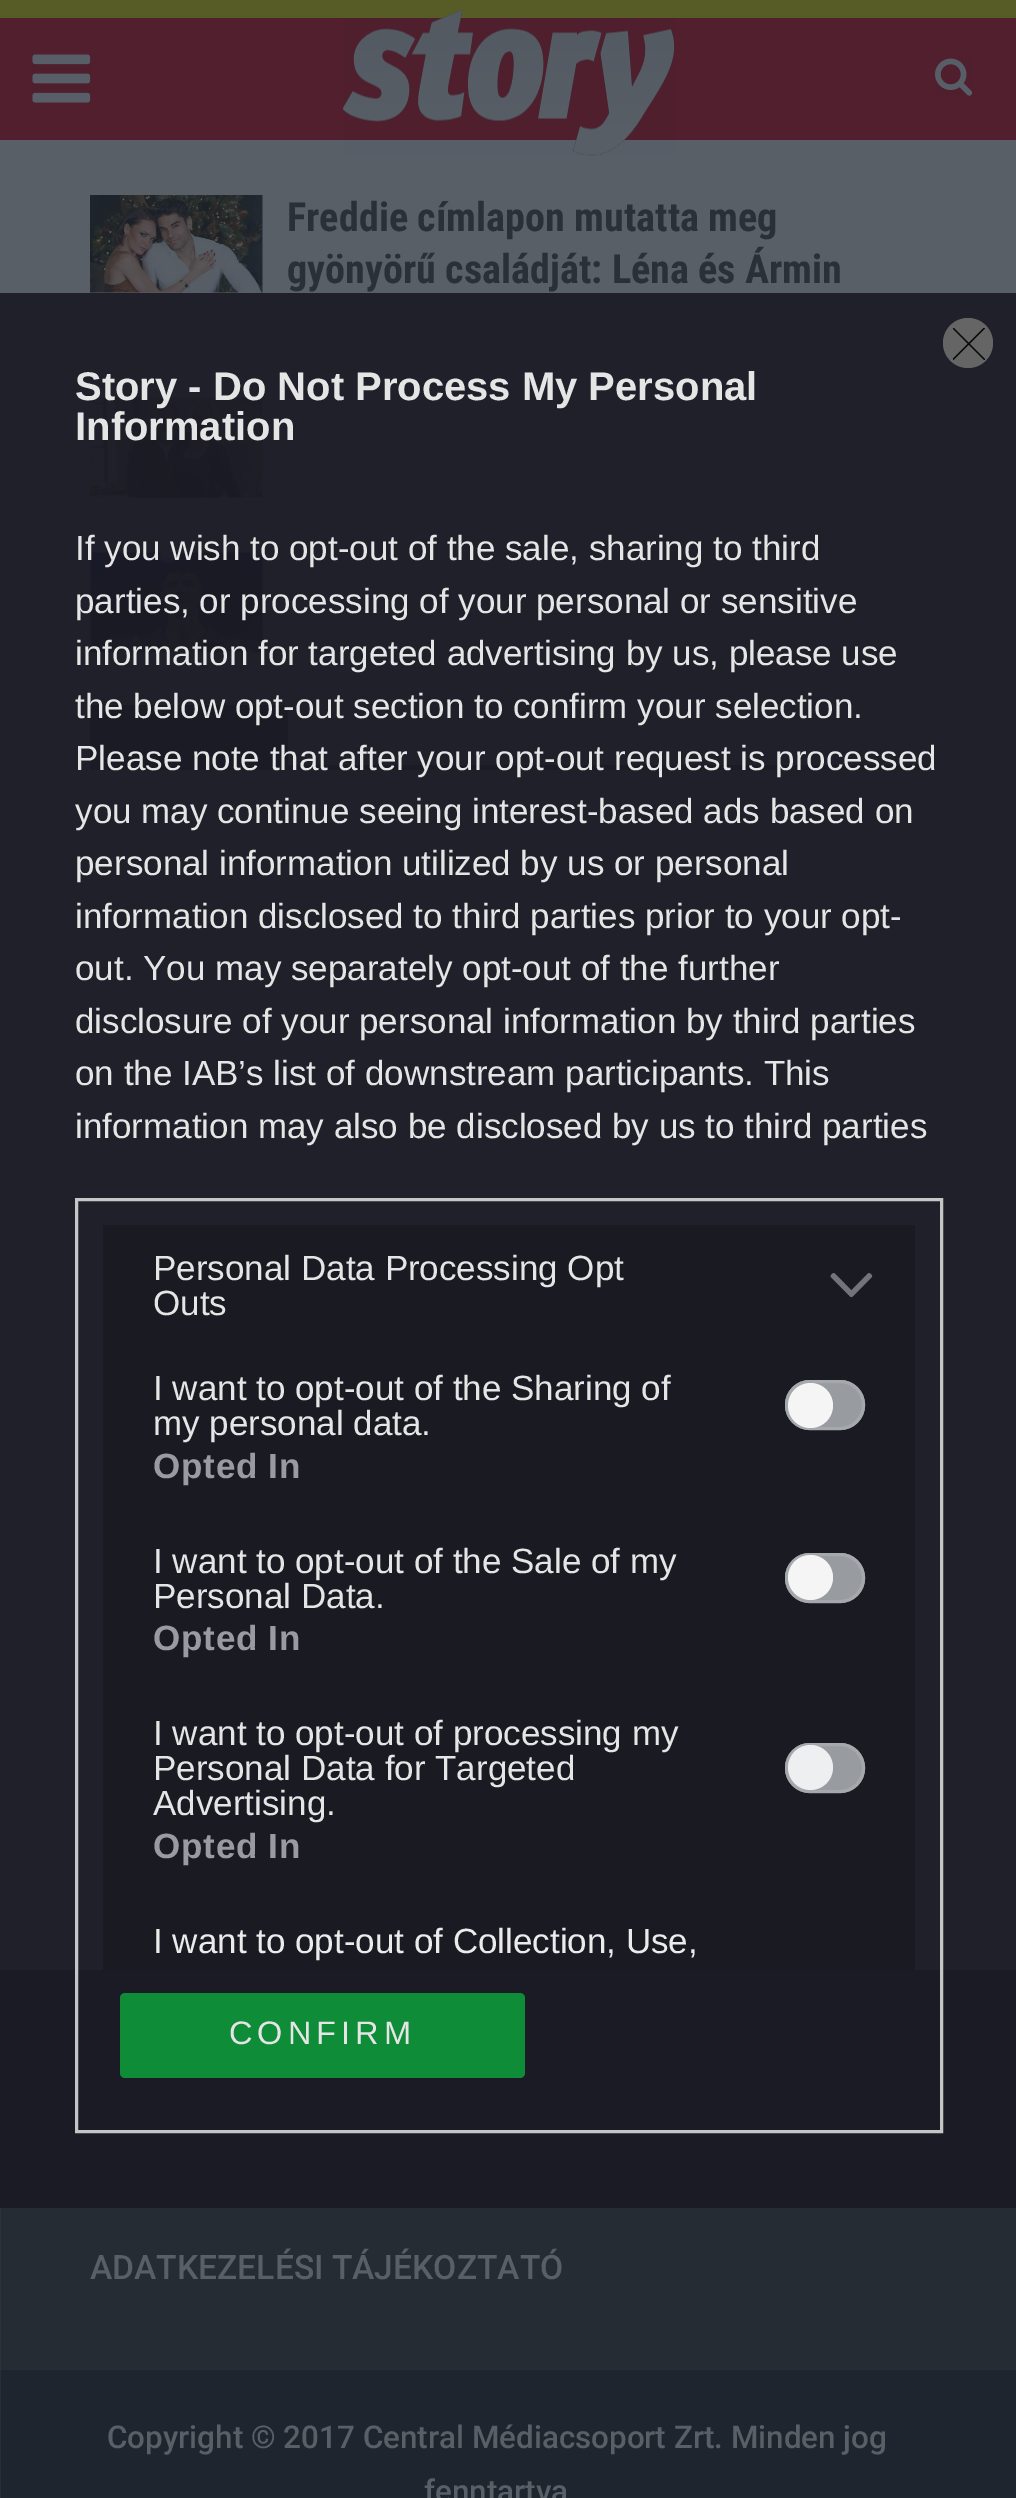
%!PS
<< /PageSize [1016 2498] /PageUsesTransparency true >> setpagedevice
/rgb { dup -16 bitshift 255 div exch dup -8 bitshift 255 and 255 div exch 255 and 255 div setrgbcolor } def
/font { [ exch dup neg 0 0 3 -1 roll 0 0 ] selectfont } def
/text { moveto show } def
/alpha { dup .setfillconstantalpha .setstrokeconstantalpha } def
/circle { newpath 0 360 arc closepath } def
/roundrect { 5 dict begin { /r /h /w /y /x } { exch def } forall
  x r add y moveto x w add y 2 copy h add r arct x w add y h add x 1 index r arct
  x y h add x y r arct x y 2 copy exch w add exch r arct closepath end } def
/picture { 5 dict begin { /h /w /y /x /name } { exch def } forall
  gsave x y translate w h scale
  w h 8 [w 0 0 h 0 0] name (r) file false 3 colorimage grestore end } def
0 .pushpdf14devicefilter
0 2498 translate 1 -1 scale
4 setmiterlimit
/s1 { /RobotoCondensed-Bold 40.25 font 16#2A3038 rgb } def
/s2 { /LiberationSans-Bold 40 font 16#E5E5E6 rgb } def
/s3 { /LiberationSans-Regular 35 font 16#E5E5E6 rgb } def
/s4 { /LiberationSans-Regular 35 font 16#EBEBEC rgb } def
/s5 { /Roboto-Medium 33.6 font 16#595F67 rgb } def
/s6 { /Roboto-Medium 31.4 font 16#595F67 rgb } def
16#595F67 rgb
0 0 1016 2498 rectfill
16#1F2029 rgb
0 293 1016 1677 rectfill
16#511F2D rgb
0 18 1016 122 rectfill
16#575C27 rgb
0 0 1016 18 rectfill
(pic1.raw) 32 54 59 49 picture
(pic2.raw) 343 10 332 146 picture
(pic3.raw) 935 58 38 38 picture
(pic4.raw) 90 195 173 98 picture
s1
(Freddie címlapon mutatta meg) 287 231 text
(gyönyörű családját: Léna és Ármin) 287 283 text
(pic5.raw) 90 397 173 101 picture
(pic6.raw) 90 552 173 101 picture
16#1A1B24 rgb
95 705 moveto 283 705 lineto 286 705 288 707 288 710 curveto 288 765 lineto 90 765 lineto 90 710 lineto 90 707 92 705 95 705 curveto closepath fill
90 765 838 5 rectfill
16#656566 rgb
968 343 25 circle fill
gsave
953 328 32 32 rectclip
16#09090A rgb
1.4 setlinewidth
1 setlinecap
1 setlinejoin
953 328 moveto 984.5 359.5 lineto 984.5 328 moveto 953 359.5 lineto stroke
grestore
s2
(Story - Do Not Process My Personal) 75 400 text
(Information) 75 440 text
s3
(If you wish to opt-out of the sale, sharing to third) 75 560 text
(parties, or processing of your personal or sensitive) 75 613 text
(information for targeted advertising by us, please use) 75 665 text
(the below opt-out section to confirm your selection.) 75 718 text
(Please note that after your opt-out request is processed) 75 770 text
(you may continue seeing interest-based ads based on) 75 823 text
(personal information utilized by us or personal) 75 875 text
(information disclosed to third parties prior to your opt-) 75 928 text
(out. You may separately opt-out of the further) 75 980 text
(disclosure of your personal information by third parties) 75 1033 text
(on the IAB’s list of downstream participants. This) 75 1085 text
(information may also be disclosed by us to third parties) 75 1138 text
16#1A1B24 rgb
1 1970 1015 238 rectfill
0.9 alpha
16#D8D8D8 rgb
3 setlinewidth
76.5 1199.5 865 932 rectstroke
16#191922 rgb
103 1225 812 745 rectfill
1 alpha
s3
(Personal Data Processing Opt) 153 1280 text
(Outs) 153 1315 text
(pic7.raw) 830 1273 43 25 picture
(I want to opt-out of the Sharing of) 153 1400 text
(my personal data.) 153 1435 text
16#989BA0 rgb
785 1380 80 50 25 roundrect fill
0.9 alpha
16#A6A9AE rgb
786.5 1381.5 77 47 23.5 roundrect stroke
16#FFFFFF rgb
810.5 1405.5 22.5 circle fill
/LiberationSans-Bold 35 font
1 alpha
16#989BA0 rgb
153 1478 moveto 0.75 0 (Opted In) ashow
s3
(I want to opt-out of the Sale of my) 153 1573 text
(Personal Data.) 153 1608 text
16#989BA0 rgb
785 1553 80 50 25 roundrect fill
0.9 alpha
16#A6A9AE rgb
786.5 1554.5 77 47 23.5 roundrect stroke
16#FFFFFF rgb
810.5 1577.5 22.5 circle fill
/LiberationSans-Bold 35 font
1 alpha
16#989BA0 rgb
153 1650 moveto 0.75 0 (Opted In) ashow
s3
(I want to opt-out of processing my) 153 1745 text
(Personal Data for Targeted) 153 1780 text
(Advertising.) 153 1815 text
16#989BA0 rgb
785 1743 80 50 25 roundrect fill
0.9 alpha
16#A6A9AE rgb
786.5 1744.5 77 47 23.5 roundrect stroke
1 alpha
16#EEEFF0 rgb
810.5 1767.5 22.5 circle fill
/LiberationSans-Bold 35 font
16#989BA0 rgb
153 1858 moveto 0.75 0 (Opted In) ashow
s4
(I want to opt-out of Collection, Use,) 153 1953 text
0.9 alpha
16#0E9839 rgb
120 1993 405 85 5 roundrect fill
/LiberationSans-Regular 32.5 font
1 alpha
16#E5E5E6 rgb
229 2044 moveto 5 0 (CONFIRM) ashow
16#262C34 rgb
1 2208 1015 162 rectfill
16#2D333C rgb
0 2208 1 162 rectfill
16#1B1C25 rgb
0 1970 1 238 rectfill
s5
(ADATKEZELÉSI TÁJÉKOZTATÓ) 90 2279 text
16#1F252E rgb
1 2370 1015 128 rectfill
16#282E36 rgb
0 2370 1 128 rectfill
s6
(Copyright © 2017 Central Médiacsoport Zrt. Minden jog) 107 2448 text
(fenntartva) 424 2502 text
.poppdf14devicefilter showpage
